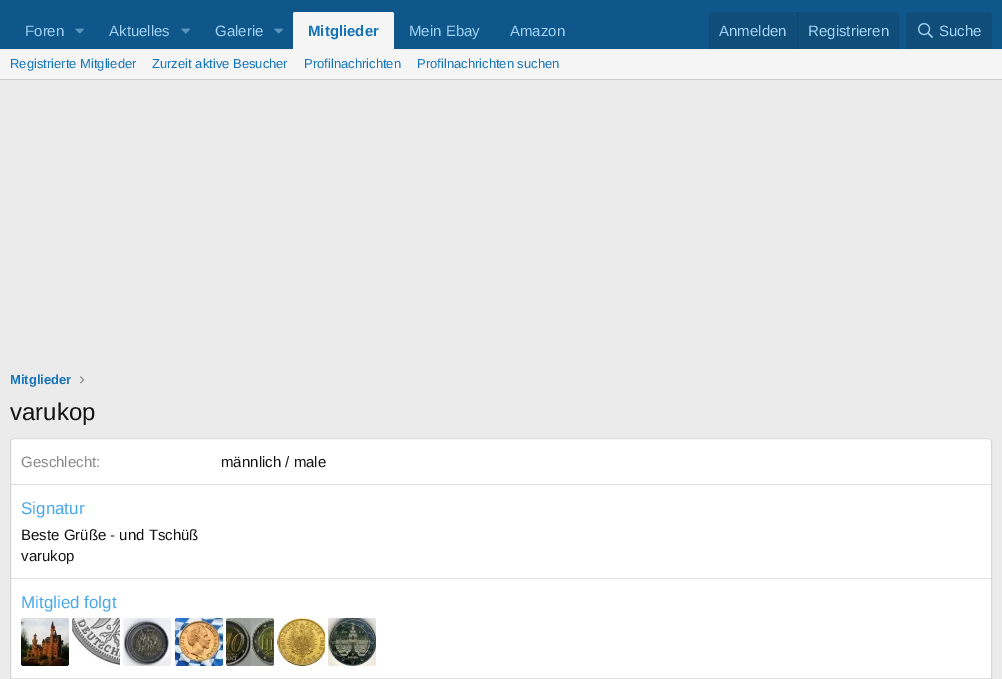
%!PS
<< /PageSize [1002 679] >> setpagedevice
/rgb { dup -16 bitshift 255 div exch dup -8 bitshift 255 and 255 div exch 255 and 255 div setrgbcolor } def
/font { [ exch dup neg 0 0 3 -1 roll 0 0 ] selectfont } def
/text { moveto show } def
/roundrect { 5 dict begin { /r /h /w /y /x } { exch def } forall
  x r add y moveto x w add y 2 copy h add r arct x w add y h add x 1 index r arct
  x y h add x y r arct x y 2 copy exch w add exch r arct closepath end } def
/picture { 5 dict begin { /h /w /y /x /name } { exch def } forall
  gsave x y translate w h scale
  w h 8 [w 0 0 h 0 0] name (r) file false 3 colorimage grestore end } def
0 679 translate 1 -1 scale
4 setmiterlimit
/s1 { /LiberationSans-Regular 15 font 16#A3D4F5 rgb } def
/s2 { /LiberationSans-Bold 15 font 16#1474B8 rgb } def
/s3 { /LiberationSans-Regular 13 font 16#1474B8 rgb } def
/s4 { /LiberationSans-Bold 13 font 16#1474B8 rgb } def
/s5 { /LiberationSans-Regular 24 font 16#141414 rgb } def
/s6 { /LiberationSans-Regular 15 font 16#8A8A8A rgb } def
/s7 { /LiberationSans-Regular 15 font 16#141414 rgb } def
/s8 { /LiberationSans-Regular 17 font 16#47A7EB rgb } def
16#EBEBEB rgb
0 0 1002 679 rectfill
16#0F578A rgb
0 0 1002 49 rectfill
s1
(Foren) 25 36 text
(pic1.raw) 75 28 9 6 picture
(Aktuelles) 109 36 text
(pic1.raw) 181 28 9 6 picture
(Galerie) 215 36 text
(pic1.raw) 274 28 9 6 picture
16#F5F5F5 rgb
295 12 moveto 392 12 lineto 393 12 394 13 394 14 curveto 394 49 lineto 293 49 lineto 293 14 lineto 293 13 294 12 295 12 curveto closepath fill
s2
(Mitglieder) 308 36 text
s1
(Mein Ebay) 409 36 text
(Amazon) 510 36 text
16#104D78 rgb
713 12 moveto 895 12 lineto 897 12 899 14 899 16 curveto 899 49 lineto 709 49 lineto 709 16 lineto 709 14 711 12 713 12 curveto closepath fill
s1
(Anmelden) 719 36 text
16#114469 rgb
797 12 1 37 rectfill
s1
(Registrieren) 808 36 text
16#104D78 rgb
910 12 moveto 988 12 lineto 990 12 992 14 992 16 curveto 992 49 lineto 906 49 lineto 906 16 lineto 906 14 908 12 910 12 curveto closepath fill
(pic2.raw) 918 23 15 15 picture
s1
(Suche) 939 36 text
16#F5F5F5 rgb
0 49 1002 30 rectfill
16#CCCCCC rgb
0 79 1002 1 rectfill
s3
(Registrierte Mitglieder) 10 68 text
(Zurzeit aktive Besucher) 152 68 text
(Profilnachrichten) 304 68 text
(Profilnachrichten suchen) 417 68 text
s4
(Mitglieder) 10 384 text
(pic3.raw) 80 376 5 8 picture
s5
(varukop) 10 420 text
16#FFFFFF rgb
10 438 982 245 4 roundrect fill
16#E0E0E0 rgb
11.5 439.5 moveto 14 438.5 lineto 988 438.5 lineto 990.5 439.5 lineto stroke
16#D6D6D6 rgb
990.5 439.5 moveto 991.5 441.5 lineto 991.5 560 lineto 991.5 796 lineto 990.5 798.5 lineto stroke
11.5 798.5 moveto 10.5 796 lineto 10.5 441.5 lineto 11.5 439.5 lineto stroke
s6
(Geschlecht:) 21 467 text
s7
(männlich / male) 221 467 text
16#E0E0E0 rgb
11 484 980 1 rectfill
s8
(Signatur) 21 514 text
s7
(Beste Grüße - und Tschüß) 21 540 text
(varukop) 21 561 text
16#E0E0E0 rgb
11 578 980 1 rectfill
s8
(Mitglied folgt) 21 608 text
(pic4.raw) 21 618 48 48 picture
(pic5.raw) 72 618 48 48 picture
(pic6.raw) 123 618 48 48 picture
(pic7.raw) 175 618 48 48 picture
(pic8.raw) 226 618 48 48 picture
(pic9.raw) 277 618 48 48 picture
(pic10.raw) 328 618 48 48 picture
16#E0E0E0 rgb
11 678 980 1 rectfill
showpage
